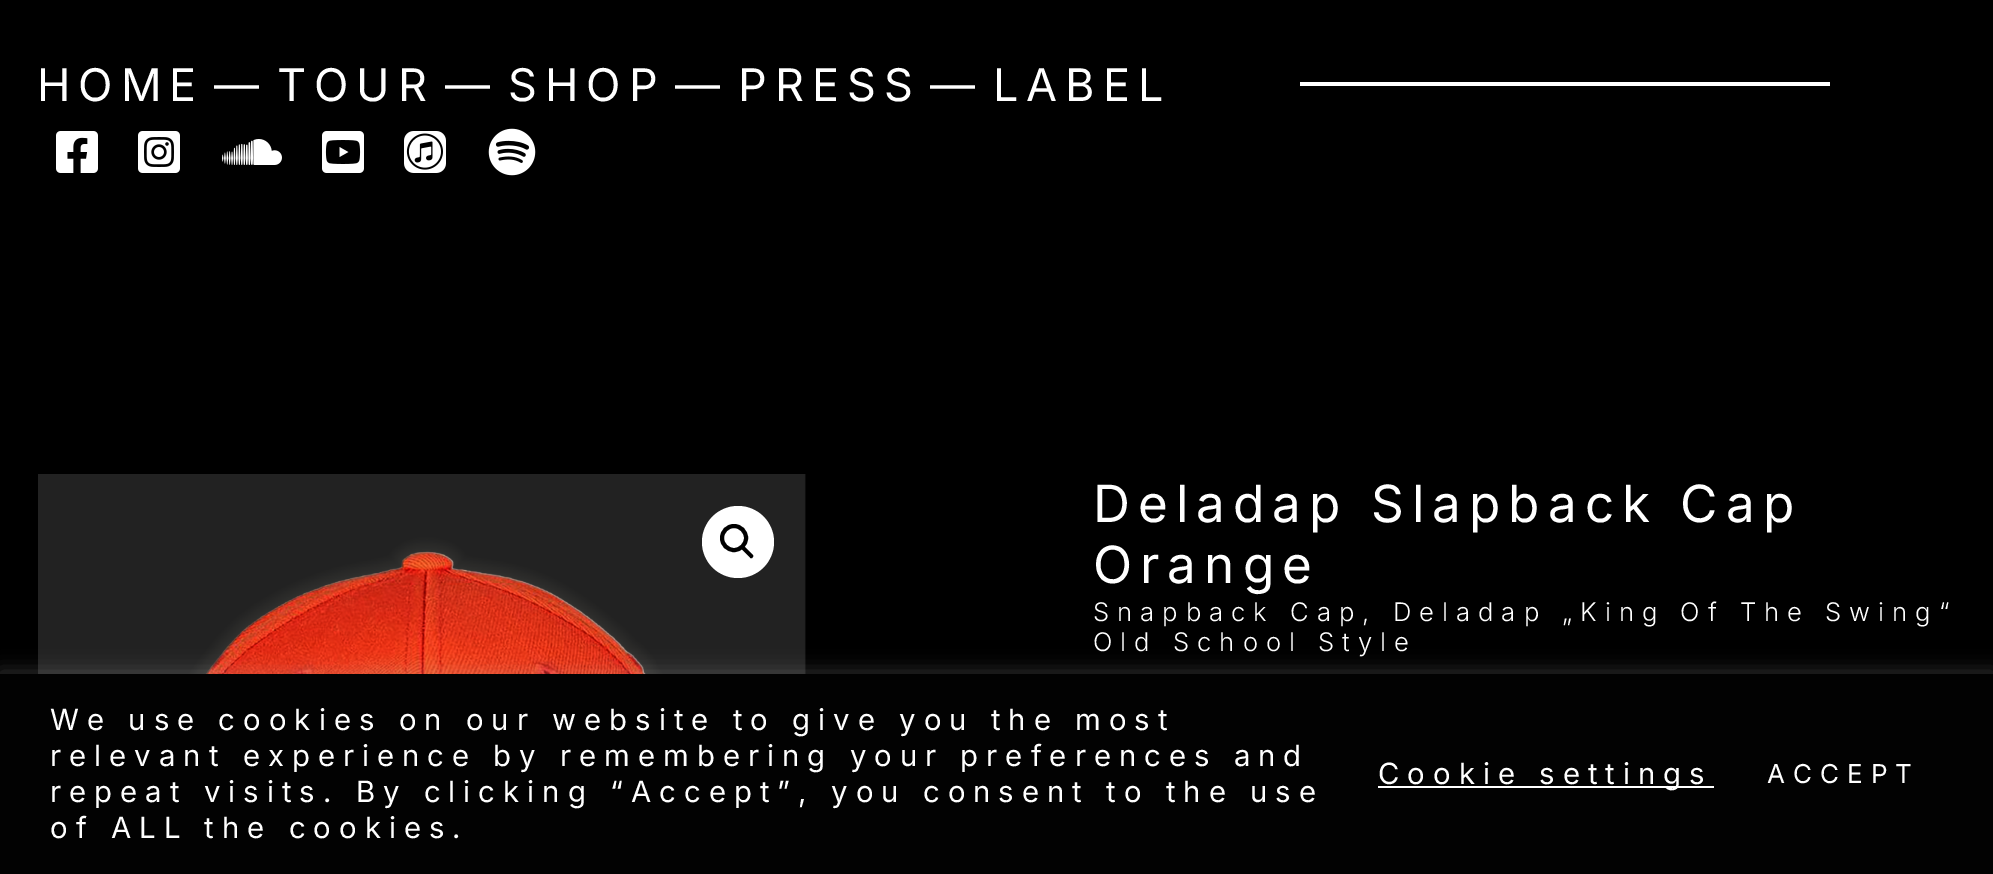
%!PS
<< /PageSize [1993 874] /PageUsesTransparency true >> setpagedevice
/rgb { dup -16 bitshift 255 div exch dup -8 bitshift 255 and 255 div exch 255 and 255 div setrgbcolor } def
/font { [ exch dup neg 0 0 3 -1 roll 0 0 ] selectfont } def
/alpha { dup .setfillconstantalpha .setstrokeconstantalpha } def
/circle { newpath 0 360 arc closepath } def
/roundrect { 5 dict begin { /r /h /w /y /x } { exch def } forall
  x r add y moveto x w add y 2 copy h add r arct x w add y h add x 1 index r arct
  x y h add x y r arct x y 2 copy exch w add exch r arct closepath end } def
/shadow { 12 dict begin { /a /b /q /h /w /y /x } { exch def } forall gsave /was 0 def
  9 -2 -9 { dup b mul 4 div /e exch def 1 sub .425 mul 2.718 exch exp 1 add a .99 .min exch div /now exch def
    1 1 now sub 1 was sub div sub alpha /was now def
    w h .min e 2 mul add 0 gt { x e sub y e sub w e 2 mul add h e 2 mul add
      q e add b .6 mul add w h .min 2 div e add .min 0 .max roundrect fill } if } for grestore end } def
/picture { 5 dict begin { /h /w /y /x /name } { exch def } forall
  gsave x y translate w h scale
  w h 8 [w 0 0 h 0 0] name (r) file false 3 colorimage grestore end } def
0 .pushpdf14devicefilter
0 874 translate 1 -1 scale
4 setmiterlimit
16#000000 rgb
0 0 1993 874 rectfill
/Inter-Regular 45 font
16#FFFFFF rgb
37 101 moveto 8 0 (HOME) ashow
214 101 moveto 8 0 (—) ashow
277 101 moveto 8 0 (TOUR) ashow
445 101 moveto 8 0 (—) ashow
508 101 moveto 8 0 (SHOP) ashow
675 101 moveto 8 0 (—) ashow
738 101 moveto 8 0 (PRESS) ashow
930 101 moveto 8 0 (—) ashow
993 101 moveto 8 0 (LABEL) ashow
1300 82 530 4 rectfill
(pic1.raw) 56 131 42 42 picture
(pic2.raw) 138 131 42 42 picture
(pic3.raw) 222 139 60 26 picture
(pic4.raw) 322 131 42 42 picture
(pic5.raw) 404 131 42 42 picture
(pic6.raw) 488 128 48 48 picture
(pic7.raw) 38 474 768 200 picture
738 542 36 circle fill
16#000000 rgb
4 setlinewidth
734 538 12 circle stroke
741.5 546 moveto 742 545.5 743.5 545.5 744 546 curveto 752.5 554.5 lineto 753.5 555.5 753.5 556.5 752.5 557.5 curveto 752 558.5 750.5 558.5 750 557.5 curveto 741.5 549 lineto 740.5 548 740.5 547 741.5 546 curveto closepath fill
/Inter-Regular 51.25 font
16#FFFFFF rgb
1093 522 moveto 8 0 (Deladap Slapback Cap) ashow
1093 583 moveto 8 0 (Orange) ashow
/Inter-Light 25.6 font
1093 621 moveto 8 0 (Snapback Cap, Deladap „King Of The Swing“) ashow
1093 651 moveto 8 0 (Old School Style) ashow
16#ACABAB rgb
0 672 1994 200 0 10 0.3 shadow
16#020202 rgb
0 674 1993 200 rectfill
/Inter-Regular 29.35 font
16#FFFFFF rgb
50 730 moveto 8 0 (We use cookies on our website to give you the most) ashow
50 766 moveto 8 0 (relevant experience by remembering your preferences and) ashow
50 802 moveto 8 0 (repeat visits. By clicking “Accept”, you consent to the use) ashow
50 838 moveto 8 0 (of ALL the cookies.) ashow
1378 786 336 2 rectfill
1378 784 moveto 8 0 (Cookie settings) ashow
/Inter-Regular 26 font
1767 783 moveto 8 0 (ACCEPT) ashow
.poppdf14devicefilter showpage
